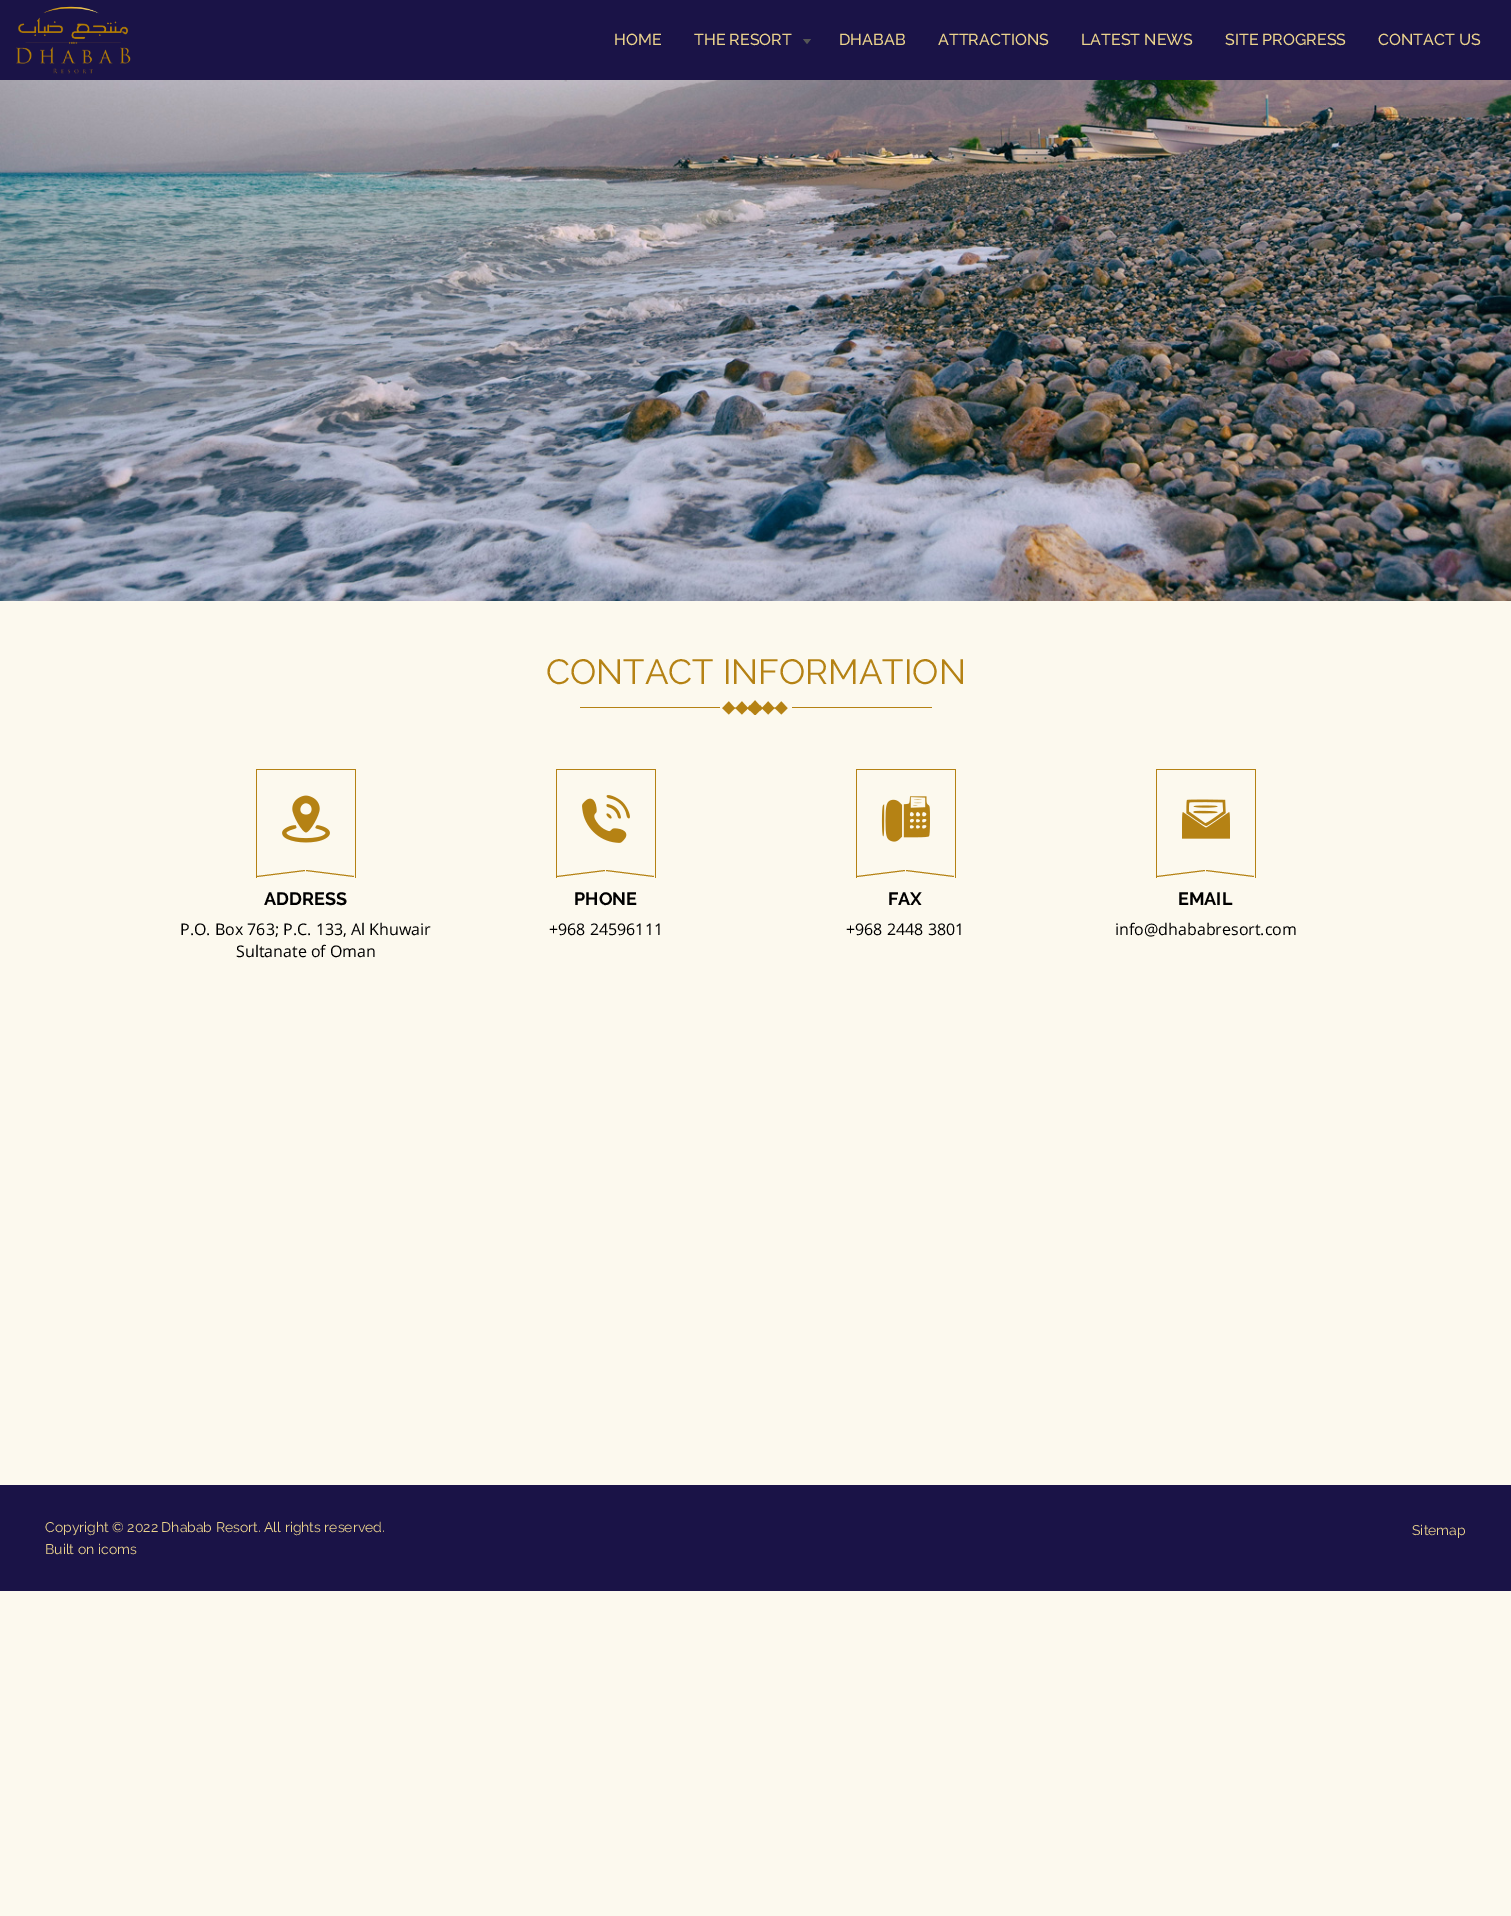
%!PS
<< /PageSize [1511 1916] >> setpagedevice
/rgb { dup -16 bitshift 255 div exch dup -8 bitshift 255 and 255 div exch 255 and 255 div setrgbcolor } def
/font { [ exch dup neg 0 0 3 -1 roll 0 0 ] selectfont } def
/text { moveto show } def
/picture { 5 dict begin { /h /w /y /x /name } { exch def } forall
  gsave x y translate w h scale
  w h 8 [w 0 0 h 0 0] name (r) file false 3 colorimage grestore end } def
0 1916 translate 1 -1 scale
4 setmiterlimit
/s1 { /Raleway-Medium 16 font 16#ECD48D rgb } def
/s2 { /Raleway-Regular 35 font 16#B58214 rgb } def
/s3 { /Raleway-Bold 18 font 16#000000 rgb } def
/s4 { /OpenSans-Regular 16 font 16#000000 rgb } def
/s5 { /Raleway-Regular 14 font 16#ECD48D rgb } def
16#FCF9EE rgb
0 0 1511 1916 rectfill
16#1A1347 rgb
0 0 1511 80 rectfill
(pic1.raw) 16 6 115 68 picture
s1
(HOME) 614 45 text
(THE RESORT) 694 45 text
16#555555 rgb
807 44 moveto 811 39 lineto 803 39 lineto closepath eofill
s1
(DHABAB) 839 45 text
(ATTRACTIONS) 938 45 text
(LATEST NEWS) 1081 45 text
(SITE PROGRESS) 1225 45 text
(CONTACT US) 1378 45 text
(pic2.raw) 0 80 1511 521 picture
s2
(CONTACT INFORMATION) 546 684 text
580 707 140 1 rectfill
(pic3.raw) 722 700 66 15 picture
792 707 140 1 rectfill
256 769 100 1 rectfill
355 769 1 109 rectfill
256 769 1 109 rectfill
(pic4.raw) 282 795 48 48 picture
257 876 moveto 305 870 lineto 305 871 lineto 257 877 lineto closepath fill
306 870 moveto 354 876 lineto 354 877 lineto 306 871 lineto closepath fill
s3
(ADDRESS) 264 905 text
s4
(P.O. Box 763; P.C. 133, Al Khuwair) 180 935 text
(Sultanate of Oman) 236 957 text
16#B58214 rgb
556 769 100 1 rectfill
655 769 1 109 rectfill
556 769 1 109 rectfill
(pic5.raw) 582 795 48 48 picture
557 876 moveto 605 870 lineto 605 871 lineto 557 877 lineto closepath fill
606 870 moveto 654 876 lineto 654 877 lineto 606 871 lineto closepath fill
s3
(PHONE) 574 905 text
s4
(+968 24596111) 549 935 text
16#B58214 rgb
856 769 100 1 rectfill
955 769 1 109 rectfill
856 769 1 109 rectfill
(pic6.raw) 881 796 49 46 picture
857 876 moveto 905 870 lineto 905 871 lineto 857 877 lineto closepath fill
906 870 moveto 954 876 lineto 954 877 lineto 906 871 lineto closepath fill
s3
(FAX) 888 905 text
s4
(+968 2448 3801) 846 935 text
16#B58214 rgb
1156 769 100 1 rectfill
1255 769 1 109 rectfill
1156 769 1 109 rectfill
(pic7.raw) 1182 799 48 40 picture
1157 876 moveto 1205 870 lineto 1205 871 lineto 1157 877 lineto closepath fill
1206 870 moveto 1254 876 lineto 1254 877 lineto 1206 871 lineto closepath fill
s3
(EMAIL) 1178 905 text
s4
(info@dhababresort.com) 1115 935 text
16#1A1347 rgb
0 1485 1511 106 rectfill
s5
(Copyright © 2022 Dhabab Resort. All rights reserved.) 45 1532 text
(Built on icoms) 45 1554 text
(Sitemap) 1412 1535 text
showpage
